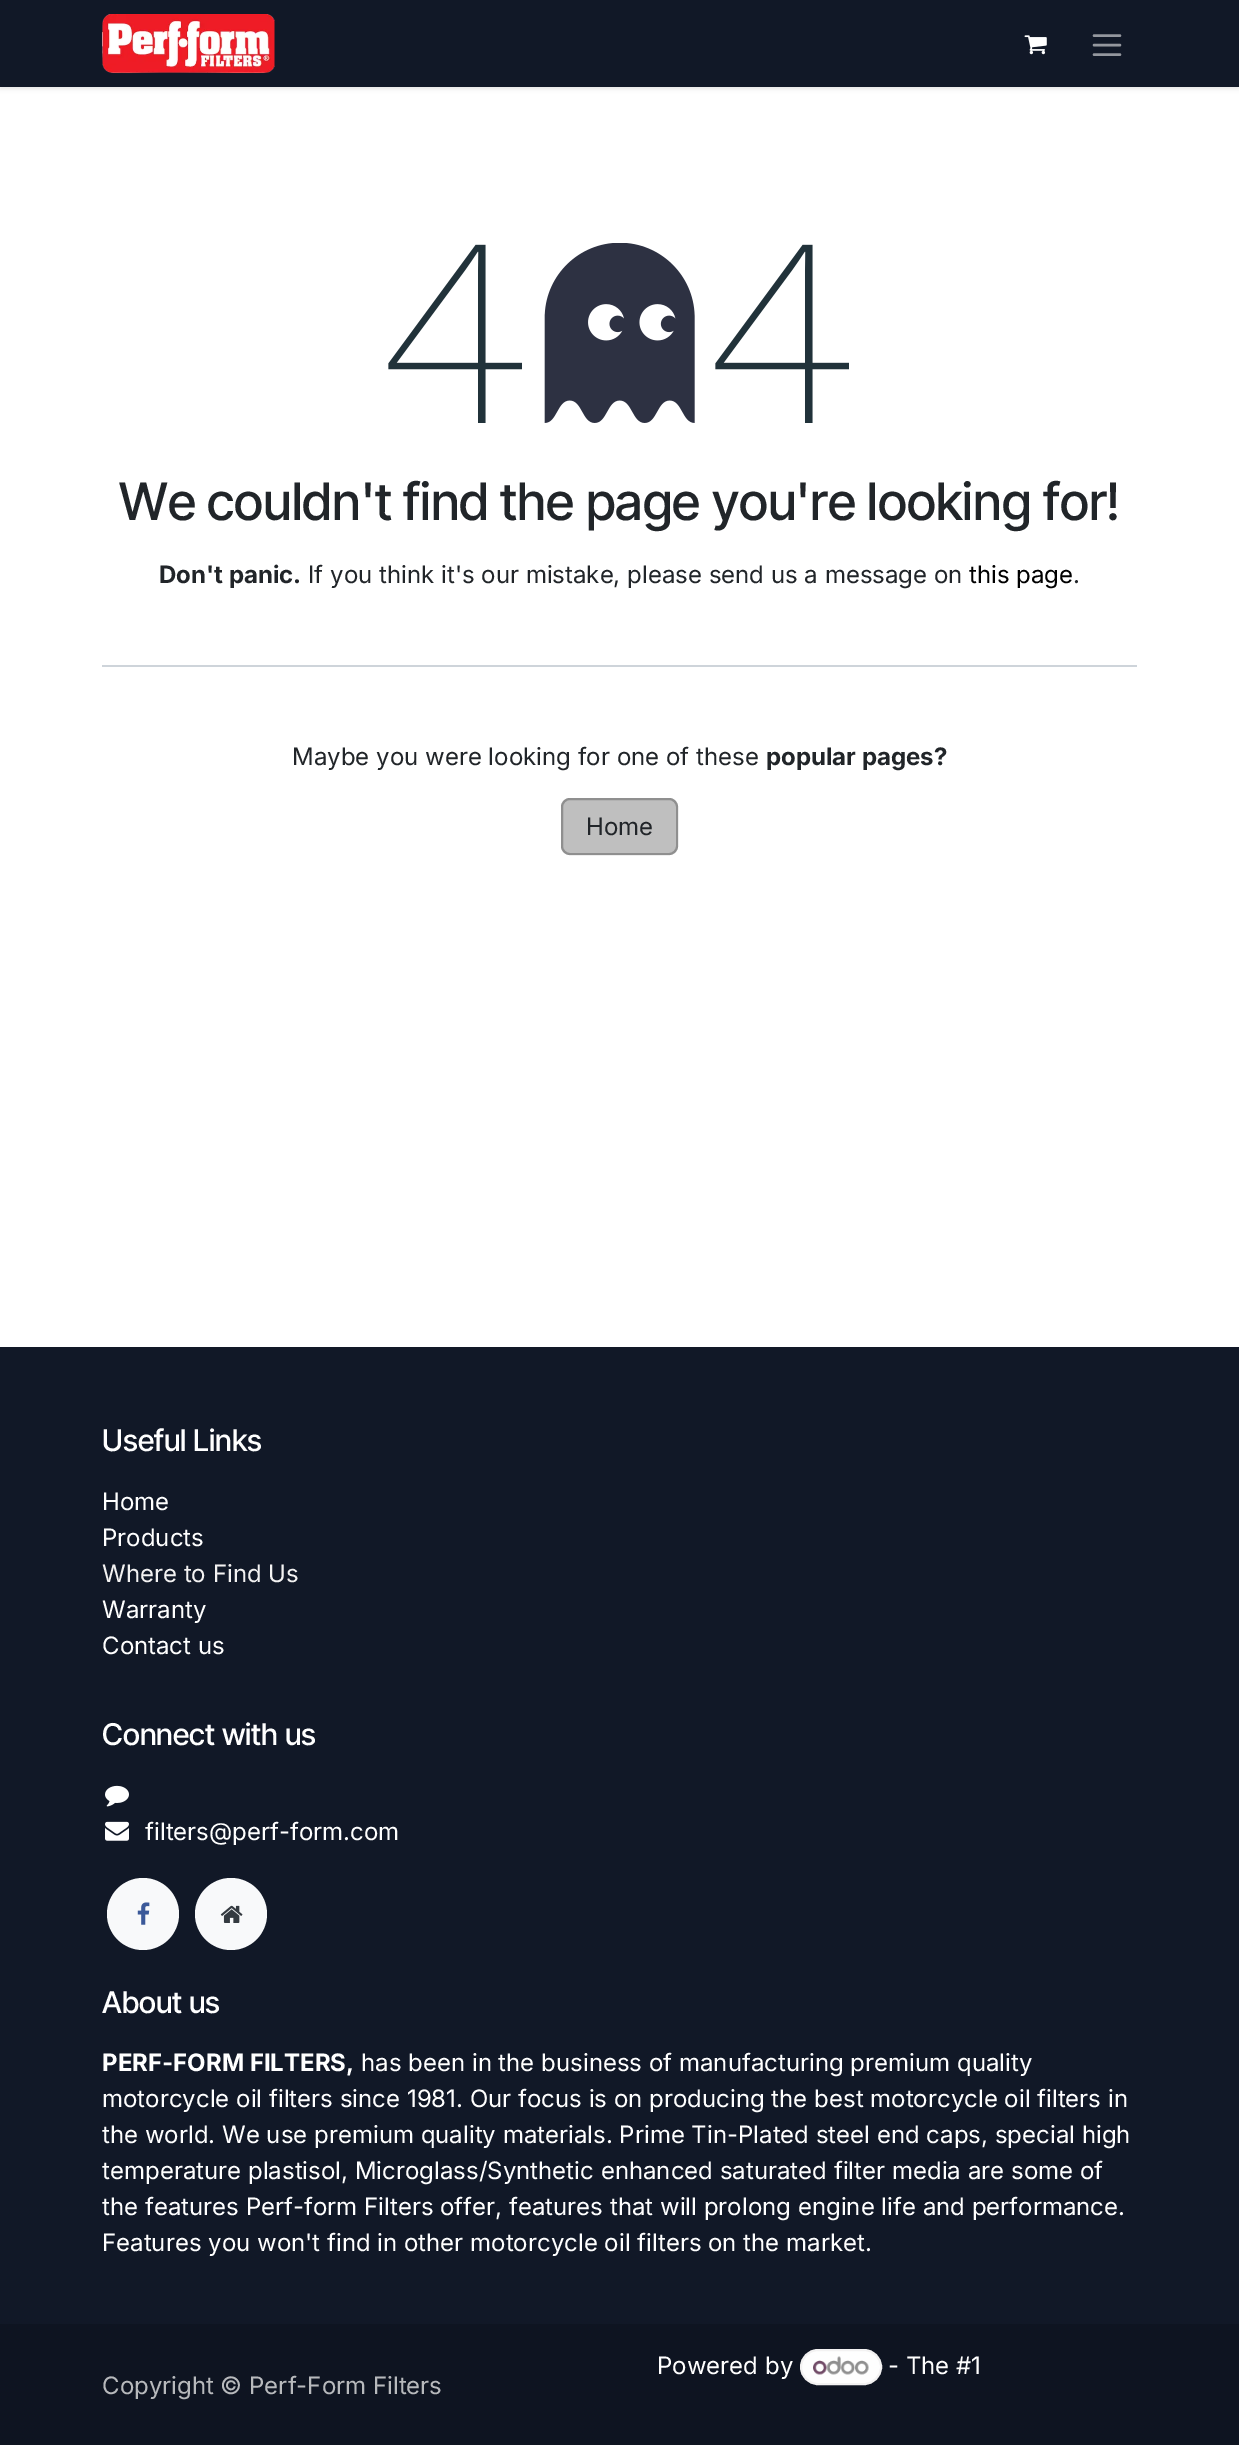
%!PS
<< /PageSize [1239 2445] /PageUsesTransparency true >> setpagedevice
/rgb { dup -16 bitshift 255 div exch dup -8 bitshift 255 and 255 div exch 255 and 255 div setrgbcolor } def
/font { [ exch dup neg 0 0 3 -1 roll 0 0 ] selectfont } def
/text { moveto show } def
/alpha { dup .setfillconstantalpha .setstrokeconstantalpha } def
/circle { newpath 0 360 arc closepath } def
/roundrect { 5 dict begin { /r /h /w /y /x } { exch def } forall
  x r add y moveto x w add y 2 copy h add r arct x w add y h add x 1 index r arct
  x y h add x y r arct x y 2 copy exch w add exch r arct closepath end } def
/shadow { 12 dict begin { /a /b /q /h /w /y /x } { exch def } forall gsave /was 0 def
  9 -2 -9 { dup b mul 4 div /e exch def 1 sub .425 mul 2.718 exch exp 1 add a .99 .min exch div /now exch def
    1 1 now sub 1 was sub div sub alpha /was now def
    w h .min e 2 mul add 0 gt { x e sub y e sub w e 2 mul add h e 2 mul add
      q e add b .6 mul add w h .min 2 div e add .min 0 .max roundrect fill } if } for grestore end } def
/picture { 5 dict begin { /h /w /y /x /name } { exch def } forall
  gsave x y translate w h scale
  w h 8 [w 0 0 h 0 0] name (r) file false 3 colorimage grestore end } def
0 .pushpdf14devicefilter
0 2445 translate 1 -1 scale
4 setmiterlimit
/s1 { /InterTight-Medium 51.6 font 16#212529 rgb } def
/s2 { /Inter-Bold 24 font 16#212529 rgb } def
/s3 { /Inter-Regular 24 font 16#212529 rgb } def
/s4 { /Inter-Regular 24 font 16#000000 rgb } def
/s5 { /InterTight-Medium 30 font 16#FFFFFF rgb } def
/s6 { /Inter-Regular 24 font 16#FFFFFF rgb } def
/s7 { /Inter-Regular 24 font 16#F3F2F2 rgb } def
/s8 { /Inter-Bold 24 font 16#FFFFFF rgb } def
/s9 { /Inter-Regular 24 font 16#B7B9BC rgb } def
16#FFFFFF rgb
0 0 1239 2445 rectfill
16#000000 rgb
0 2 1239 87 0 2 0.1 shadow
16#111827 rgb
0 0 1239 87 rectfill
(pic1.raw) 102 14 173 60 picture
(pic2.raw) 1024 35 23 20 picture
16#94979E rgb
2.4 setlinewidth
1 setlinecap
1094 35.5 moveto 1120 35.5 lineto 1094 45 moveto 1120 45 lineto 1094 54.5 moveto 1120 54.5 lineto stroke
(pic3.raw) 388 243 461 180 picture
s1
(We couldn't find the page you're looking for!) 119 520 text
s2
(Don't panic.) 159 583 text
s3
(If you think it's our mistake, please send us a message on) 308 583 text
s4
(this page) 969 583 text
s3
(.) 1073 583 text
16#CED4DA rgb
102 665 1035 2 rectfill
s3
(Maybe you were looking for one of these) 292 765 text
s2
(popular pages?) 766 765 text
16#BFBFBF rgb
561 798 117 57 9 roundrect fill
0.25 alpha
16#000000 rgb
2 setlinewidth
0 setlinecap
562 799 115 55 8 roundrect stroke
1 alpha
s3
(Home) 586 835 text
16#111827 rgb
0 1347 1239 977 rectfill
s5
(Useful Links) 102 1451 text
s6
(Home) 102 1510 text
(Products) 102 1546 text
s7
(Where to Find Us) 102 1582 text
s6
(Warranty) 102 1618 text
(Contact us) 102 1654 text
s5
(Connect with us) 102 1745 text
(pic4.raw) 105 1785 24 22 picture
(pic5.raw) 105 1821 24 20 picture
s6
(filters@perf-form.com) 145 1840 text
16#F8F9FA rgb
143 1914 36 circle fill
(pic6.raw) 137 1902 13 23 picture
231 1914 36 circle fill
(pic7.raw) 220 1905 23 18 picture
s5
(About us) 102 2013 text
s8
(PERF-FORM FILTERS,) 102 2071 text
s6
(has been in the business of manufacturing premium quality) 361 2071 text
(motorcycle oil filters since 1981. Our focus is on producing the best motorcycle oil filters in) 102 2107 text
(the world. We use premium quality materials. Prime Tin-Plated steel end caps, special high) 102 2143 text
(temperature plastisol, Microglass/Synthetic enhanced saturated filter media are some of) 102 2179 text
(the features Perf-form Filters offer, features that will prolong engine life and performance.) 102 2215 text
(Features you won't find in other motorcycle oil filters on the market.) 102 2251 text
16#0E1421 rgb
0 2324 1239 121 rectfill
s6
(Powered by) 657 2374 text
16#FEFEFE rgb
801 2350 80 34 17 roundrect gsave fill grestore
16#F3F2F2 rgb
stroke
(pic8.raw) 813 2356 56 19 picture
s6
(- The #1) 888 2374 text
s9
(Copyright © Perf-Form Filters) 102 2394 text
.poppdf14devicefilter showpage
